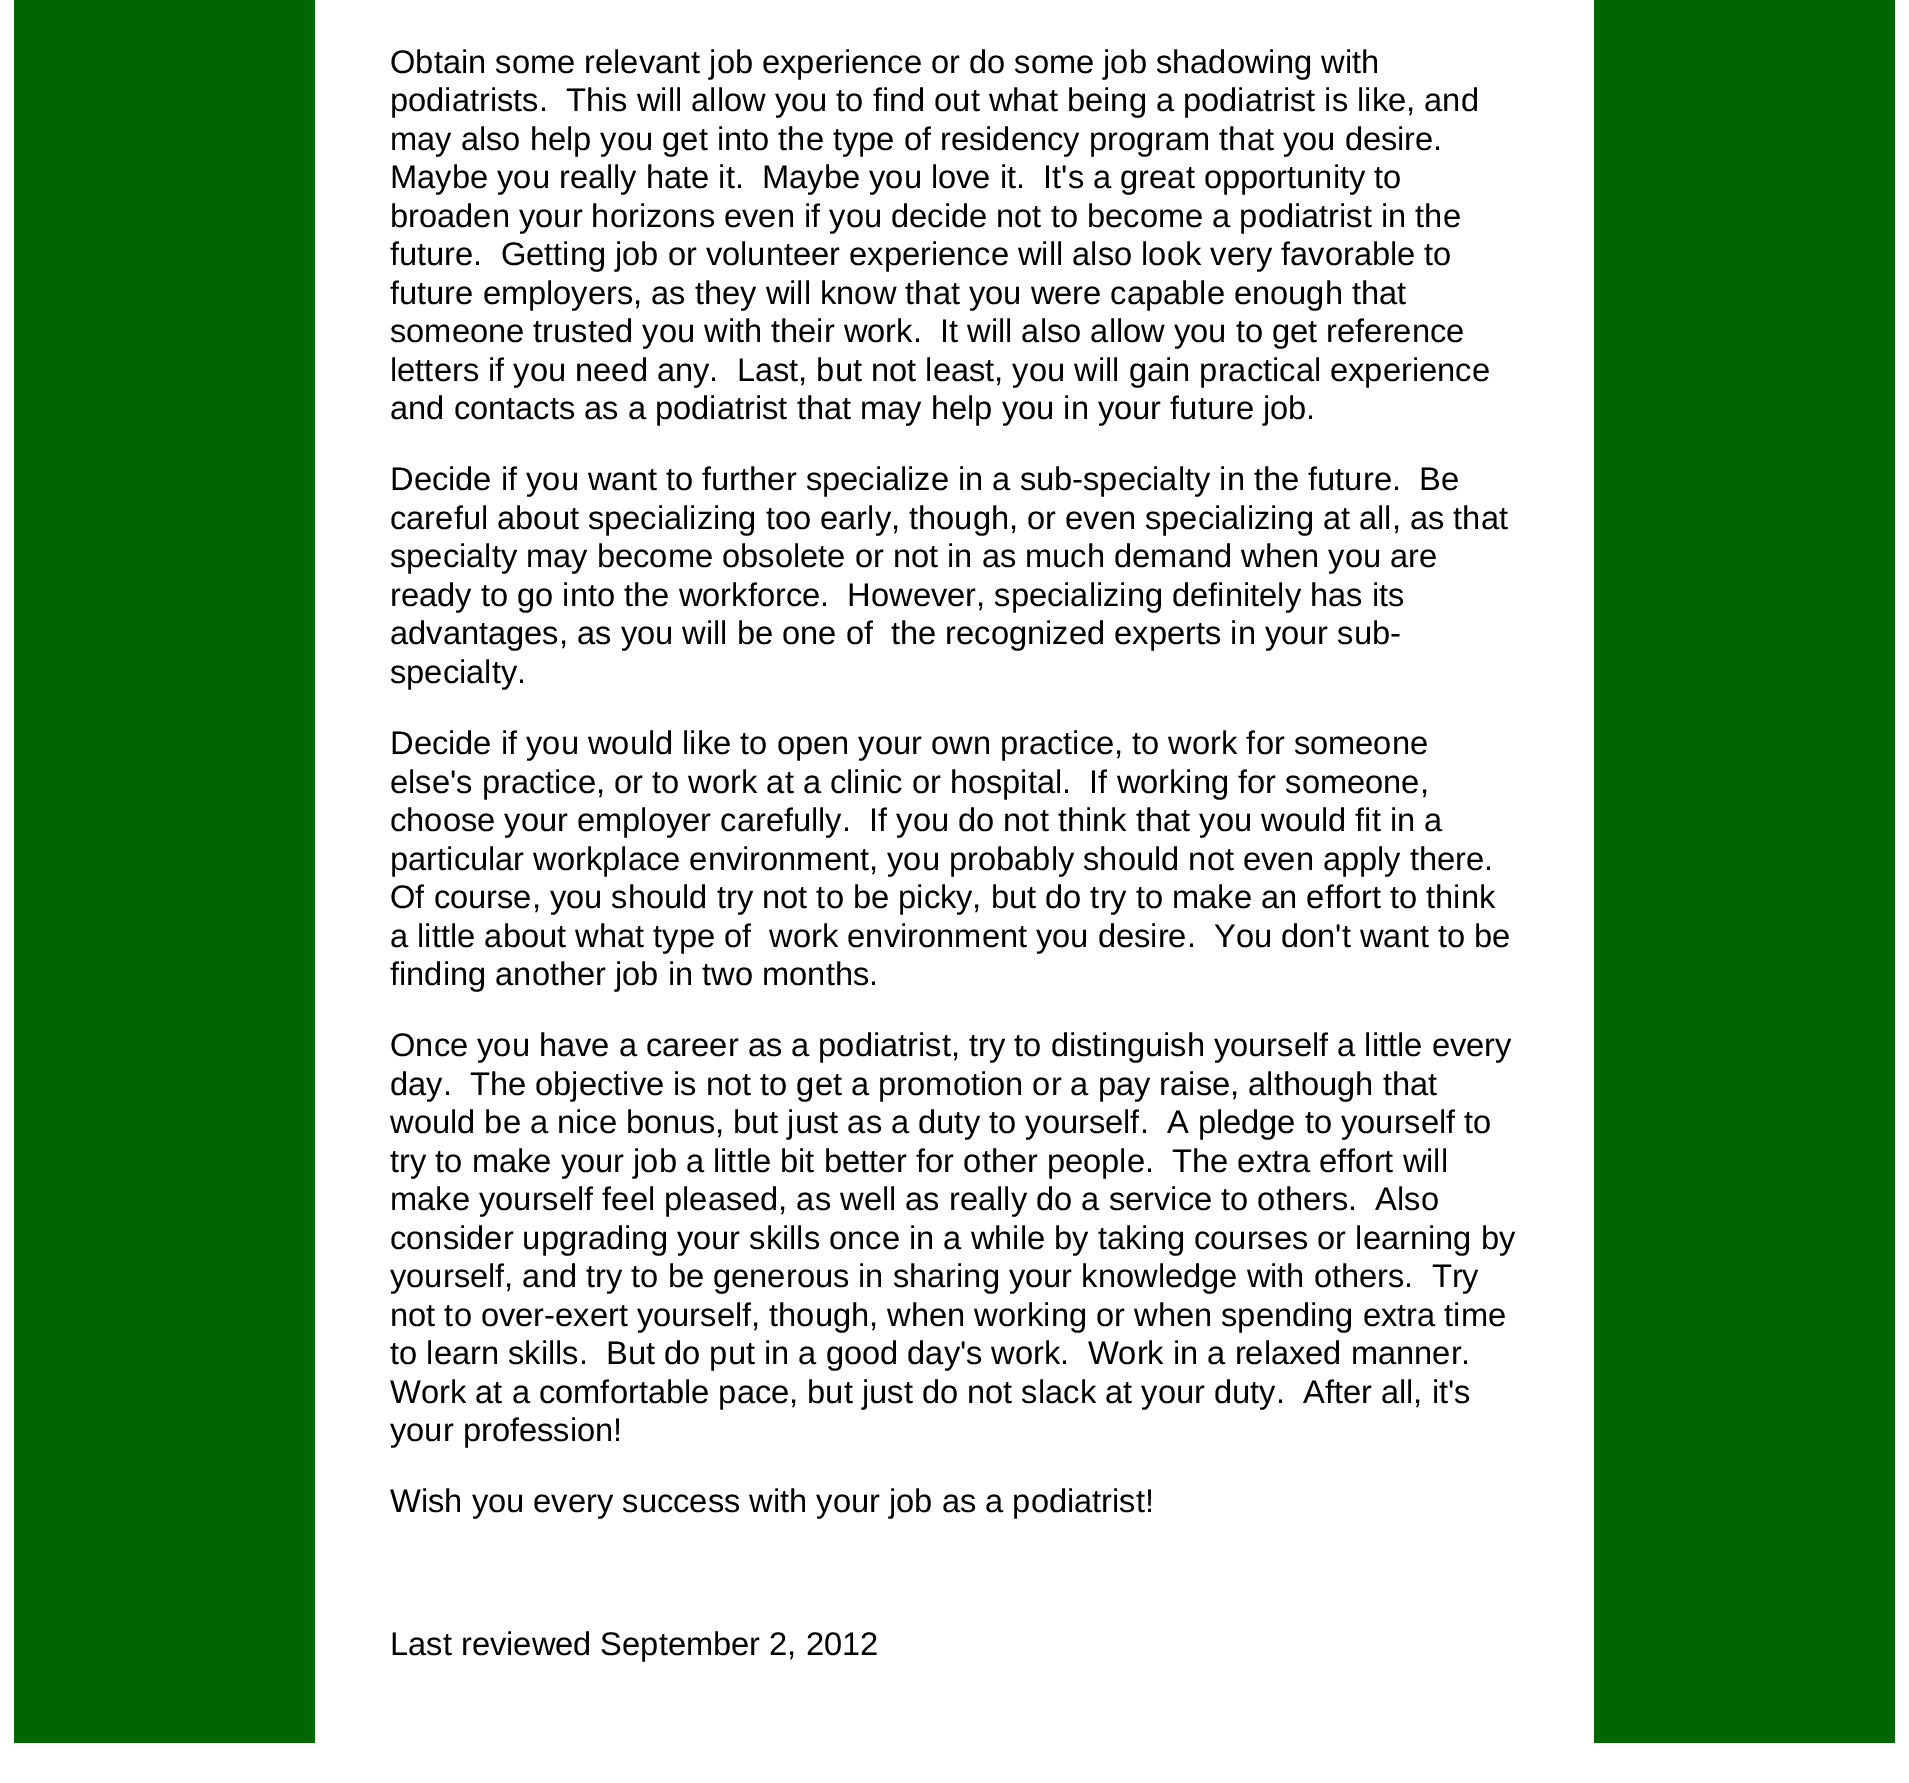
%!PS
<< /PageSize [1909 1783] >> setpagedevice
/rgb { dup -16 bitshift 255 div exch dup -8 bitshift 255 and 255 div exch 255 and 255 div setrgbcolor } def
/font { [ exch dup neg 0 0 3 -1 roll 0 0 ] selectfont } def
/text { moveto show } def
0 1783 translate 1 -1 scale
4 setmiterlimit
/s1 { /LiberationSans-Regular 32.65 font 16#000000 rgb } def
16#FFFFFF rgb
0 0 1909 1783 rectfill
16#006600 rgb
14 0 301 1743 rectfill
s1
(Obtain some relevant job experience or do some job shadowing with) 390 73 text
(podiatrists.  This will allow you to find out what being a podiatrist is like, and) 390 111 text
(may also help you get into the type of residency program that you desire.) 390 150 text
(Maybe you really hate it.  Maybe you love it.  It's a great opportunity to) 390 188 text
(broaden your horizons even if you decide not to become a podiatrist in the) 390 227 text
(future.  Getting job or volunteer experience will also look very favorable to) 390 265 text
(future employers, as they will know that you were capable enough that) 390 304 text
(someone trusted you with their work.  It will also allow you to get reference) 390 342 text
(letters if you need any.  Last, but not least, you will gain practical experience) 390 381 text
(and contacts as a podiatrist that may help you in your future job.) 390 419 text
(Decide if you want to further specialize in a sub-specialty in the future.  Be) 390 490 text
(careful about specializing too early, though, or even specializing at all, as that) 390 529 text
(specialty may become obsolete or not in as much demand when you are) 390 567 text
(ready to go into the workforce.  However, specializing definitely has its) 390 606 text
(advantages, as you will be one of  the recognized experts in your sub-) 390 644 text
(specialty.) 390 683 text
(Decide if you would like to open your own practice, to work for someone) 390 754 text
(else's practice, or to work at a clinic or hospital.  If working for someone,) 390 793 text
(choose your employer carefully.  If you do not think that you would fit in a) 390 831 text
(particular workplace environment, you probably should not even apply there.) 390 870 text
(Of course, you should try not to be picky, but do try to make an effort to think) 390 908 text
(a little about what type of  work environment you desire.  You don't want to be) 390 947 text
(finding another job in two months.) 390 985 text
(Once you have a career as a podiatrist, try to distinguish yourself a little every) 390 1056 text
(day.  The objective is not to get a promotion or a pay raise, although that) 390 1095 text
(would be a nice bonus, but just as a duty to yourself.  A pledge to yourself to) 390 1133 text
(try to make your job a little bit better for other people.  The extra effort will) 390 1172 text
(make yourself feel pleased, as well as really do a service to others.  Also) 390 1210 text
(consider upgrading your skills once in a while by taking courses or learning by) 390 1249 text
(yourself, and try to be generous in sharing your knowledge with others.  Try) 390 1287 text
(not to over-exert yourself, though, when working or when spending extra time) 390 1326 text
(to learn skills.  But do put in a good day's work.  Work in a relaxed manner.) 390 1364 text
(Work at a comfortable pace, but just do not slack at your duty.  After all, it's) 390 1403 text
(your profession!) 390 1441 text
(Wish you every success with your job as a podiatrist!) 390 1512 text
(Last reviewed September 2, 2012) 390 1655 text
16#006600 rgb
1594 0 301 1743 rectfill
showpage
